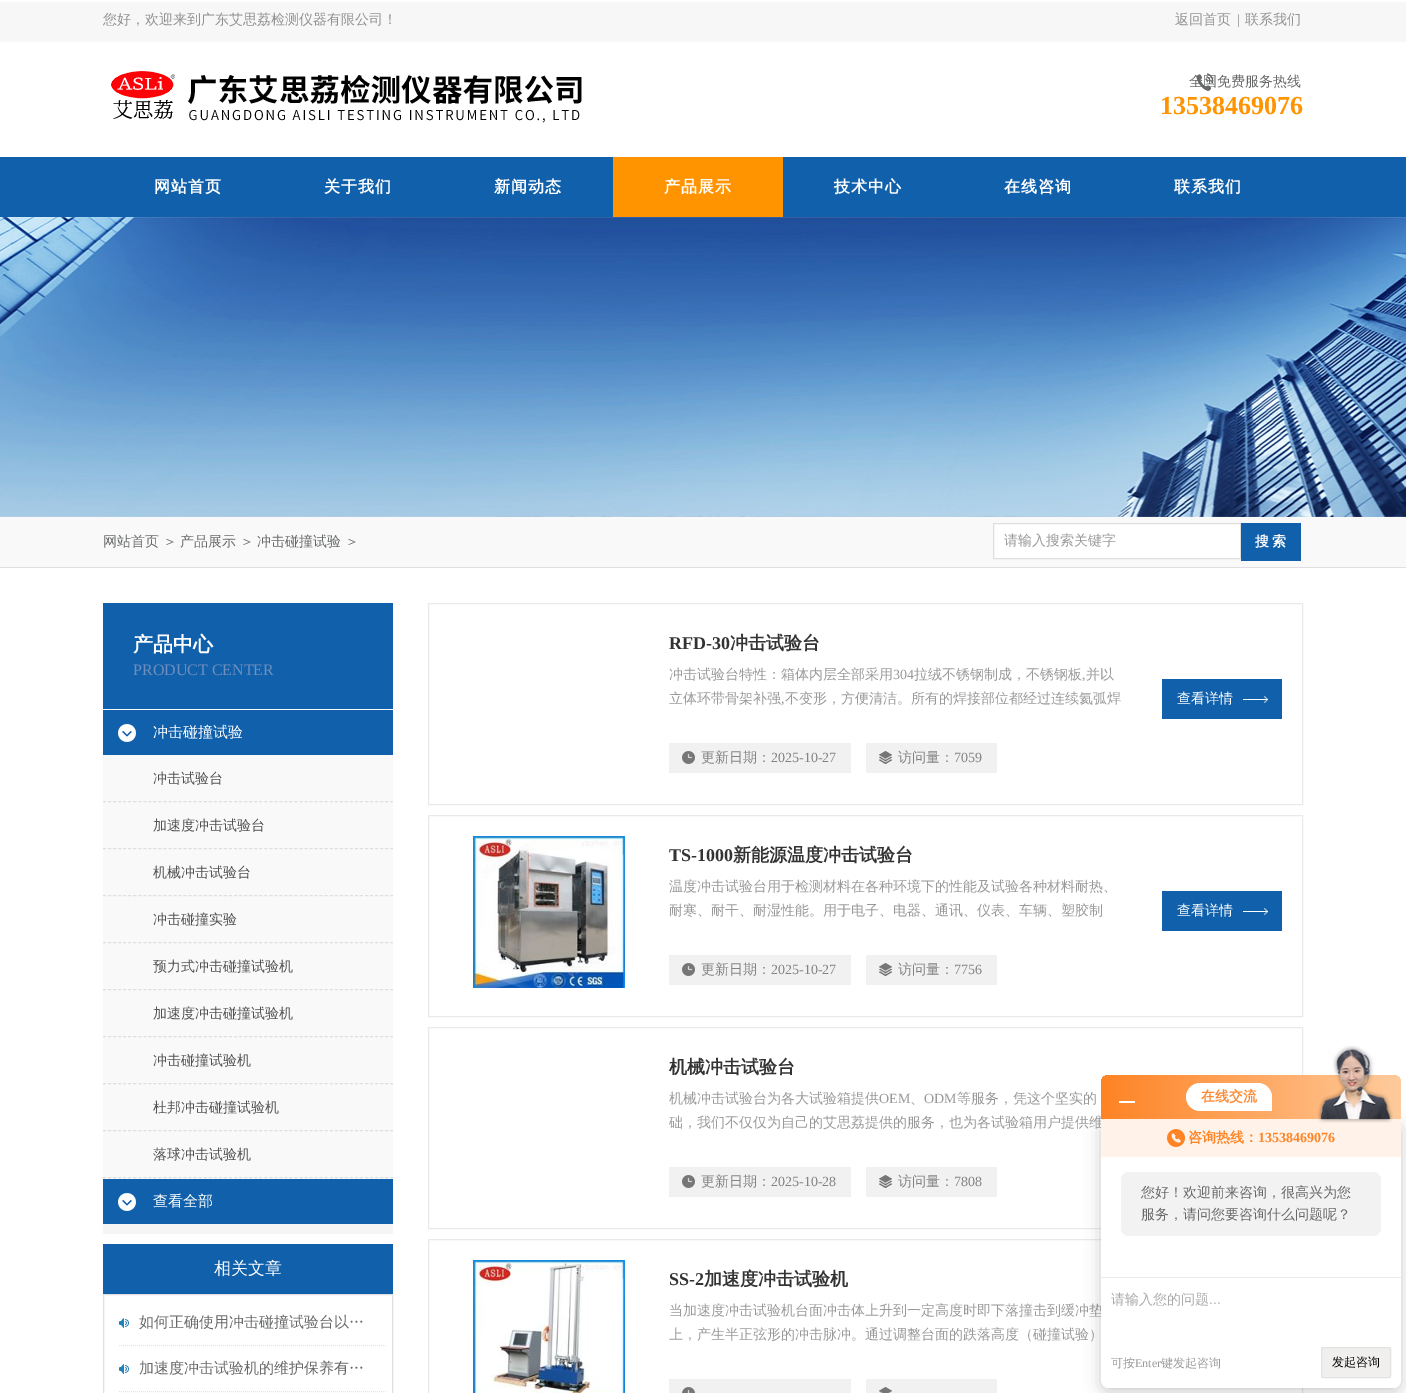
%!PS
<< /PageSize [1406 1393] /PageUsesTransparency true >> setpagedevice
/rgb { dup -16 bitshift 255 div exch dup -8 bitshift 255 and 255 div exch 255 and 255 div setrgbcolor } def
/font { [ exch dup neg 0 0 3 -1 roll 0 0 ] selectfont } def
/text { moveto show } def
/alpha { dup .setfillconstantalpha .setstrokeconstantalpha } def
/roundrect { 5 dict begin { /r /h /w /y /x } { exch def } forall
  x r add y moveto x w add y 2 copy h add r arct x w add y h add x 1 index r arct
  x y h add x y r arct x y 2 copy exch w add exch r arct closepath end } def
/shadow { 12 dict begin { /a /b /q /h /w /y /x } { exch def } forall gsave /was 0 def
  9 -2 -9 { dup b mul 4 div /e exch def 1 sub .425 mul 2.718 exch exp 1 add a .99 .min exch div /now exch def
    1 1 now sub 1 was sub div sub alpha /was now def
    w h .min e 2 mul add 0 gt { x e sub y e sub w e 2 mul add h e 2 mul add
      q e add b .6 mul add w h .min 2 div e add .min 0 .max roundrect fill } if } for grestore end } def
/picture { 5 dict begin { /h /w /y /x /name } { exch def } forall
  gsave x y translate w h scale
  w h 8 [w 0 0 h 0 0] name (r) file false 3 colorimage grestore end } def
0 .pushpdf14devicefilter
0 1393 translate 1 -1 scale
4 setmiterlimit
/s1 { /WenQuanYiZenHei-Medium 14 font 16#929091 rgb } def
/s2 { /LiberationSerif-Regular 14 font 16#929091 rgb } def
/s3 { /WenQuanYiZenHei-Medium 14 font 16#676968 rgb } def
/s4 { /LiberationSerif-Bold 26 font 16#FF9300 rgb } def
/s5 { /WenQuanYiZenHei-Medium 14 font 16#999999 rgb } def
/s6 { /WenQuanYiZenHei-Bold 20 font 16#FFFFFF rgb } def
/s7 { /LiberationSerif-Regular 16 font 16#6F8EBC rgb } def
/s8 { /WenQuanYiZenHei-Medium 15 font 16#FFFFFF rgb } def
/s9 { /WenQuanYiZenHei-Medium 14 font 16#515151 rgb } def
/s10 { /WenQuanYiZenHei-Medium 17 font 16#FFFFFF rgb } def
/s11 { /WenQuanYiZenHei-Medium 15 font 16#676968 rgb } def
/s12 { /LiberationSerif-Bold 18 font 16#333333 rgb } def
/s13 { /WenQuanYiZenHei-Bold 18 font 16#333333 rgb } def
/s14 { /LiberationSerif-Regular 14 font 16#999999 rgb } def
/s15 { /WenQuanYiZenHei-Medium 14 font 16#828282 rgb } def
/s16 { /LiberationSerif-Regular 14 font 16#828282 rgb } def
/s17 { /WenQuanYiZenHei-Medium 14 font 16#FFFFFF rgb } def
/s18 { /WenQuanYiZenHei-Bold 14 font 16#FB8B36 rgb } def
/s19 { /WenQuanYiZenHei-Bold 14 font 16#FF8426 rgb } def
/s20 { /LiberationSerif-Bold 14 font 16#FF8426 rgb } def
/s21 { /WenQuanYiZenHei-Medium 14 font 16#AAAAAA rgb } def
/s22 { /LiberationSans-Regular 14 font 16#AAAAAA rgb } def
/s23 { /WenQuanYiZenHei-Medium 12 font 16#999999 rgb } def
/s24 { /LiberationSerif-Regular 12 font 16#999999 rgb } def
/s25 { /WenQuanYiZenHei-Medium 12 font 16#000000 rgb } def
16#FFFFFF rgb
0 0 1406 1393 rectfill
16#F7F7F7 rgb
0 2 1406 40 rectfill
s1
(您好，欢迎来到广东艾思荔检测仪器有限公司！) 103 24 text
(返回首页) 1175 24 text
s2
(|) 1237 24 text
s1
(联系我们) 1245 24 text
(pic1.raw) 111 71 471 52 picture
(pic2.raw) 1196 73 18 18 picture
s3
(全国免费服务热线) 1189 86 text
s4
(13538469076) 1160 114 text
16#1060AB rgb
0 157 1406 60 rectfill
/WenQuanYiZenHei-Bold 16 font
16#FFFFFF rgb
154 192 moveto 1 0 (网站首页) ashow
324 192 moveto 1 0 (关于我们) ashow
494 192 moveto 1 0 (新闻动态) ashow
16#FF9300 rgb
613 157 170 60 rectfill
16#FFFFFF rgb
664 192 moveto 1 0 (产品展示) ashow
834 192 moveto 1 0 (技术中心) ashow
1004 192 moveto 1 0 (在线咨询) ashow
1174 192 moveto 1 0 (联系我们) ashow
(pic3.raw) 0 217 1406 300 picture
16#F9F9F9 rgb
0 517 1406 50 rectfill
16#DFDFDF rgb
0 567 1406 1 rectfill
s3
(网站首页) 103 546 text
(＞) 163 546 text
(产品展示) 180 546 text
(＞) 240 546 text
(冲击碰撞试验) 257 546 text
(＞) 345 546 text
16#FFFFFF rgb
993.5 523.5 moveto 1240.5 523.5 lineto 1240.5 558.5 lineto 993.5 558.5 lineto closepath gsave fill grestore
16#DFDFDF rgb
stroke
s5
(请输入搜索关键字) 1004 545 text
16#1060AB rgb
1241 523 60 38 rectfill
/WenQuanYiZenHei-Bold 14 font
16#FFFFFF rgb
1255 546 moveto -1 0 32 (搜 索) widthshow
16#F5F5F5 rgb
103 1224 290 10 rectfill
16#1060AB rgb
103 603 290 106 rectfill
s6
(产品中心) 133 651 text
s7
(PRODUCT CENTER) 133 675 text
16#F9F9F9 rgb
103 709 290 470 rectfill
16#1060AB rgb
103 710 290 45 rectfill
(pic4.raw) 118 724 18 18 picture
s8
(冲击碰撞试验) 153 737 text
16#DFDFDF rgb
[3 2.04] 0 setdash
103 801.5 moveto 393 801.5 lineto stroke
s9
(冲击试验台) 153 783 text
16#DFDFDF rgb
103 848.5 moveto 393 848.5 lineto stroke
s9
(加速度冲击试验台) 153 830 text
16#DFDFDF rgb
103 895.5 moveto 393 895.5 lineto stroke
s9
(机械冲击试验台) 153 877 text
16#DFDFDF rgb
103 942.5 moveto 393 942.5 lineto stroke
s9
(冲击碰撞实验) 153 924 text
16#DFDFDF rgb
103 989.5 moveto 393 989.5 lineto stroke
s9
(预力式冲击碰撞试验机) 153 971 text
16#DFDFDF rgb
103 1036.5 moveto 393 1036.5 lineto stroke
s9
(加速度冲击碰撞试验机) 153 1018 text
16#DFDFDF rgb
103 1083.5 moveto 393 1083.5 lineto stroke
s9
(冲击碰撞试验机) 153 1065 text
16#DFDFDF rgb
103 1130.5 moveto 393 1130.5 lineto stroke
s9
(杜邦冲击碰撞试验机) 153 1112 text
16#DFDFDF rgb
103 1177.5 moveto 393 1177.5 lineto stroke
s9
(落球冲击试验机) 153 1159 text
16#1060AB rgb
103 1179 290 45 rectfill
(pic4.raw) 118 1193 18 18 picture
s8
(查看全部) 153 1206 text
16#1060AB rgb
103 1244 290 50 rectfill
s10
(相关文章) 214 1274 text
16#DFDFDF rgb
[] 0 setdash
103.5 1294.5 289 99 rectstroke
(pic5.raw) 119 1318 10 10 picture
16#E5E5E5 rgb
[1 1] 0 setdash
119 1345.5 moveto 387 1345.5 lineto stroke
s11
(如何正确使用冲击碰撞试验台以…) 139 1327 text
(pic5.raw) 119 1364 10 10 picture
16#E5E5E5 rgb
119 1391.5 moveto 387 1391.5 lineto stroke
s11
(加速度冲击试验机的维护保养有…) 139 1373 text
16#EAEAEA rgb
[] 0 setdash
428.5 603.5 874 201 rectstroke
s12
(RFD-30) 669 649 text
s13
(冲击试验台) 730 649 text
s5
(冲击试验台特性：箱体内层全部采用) 669 679 text
s14
(304) 893 679 text
s5
(拉绒不锈钢制成，不锈钢板) 914 679 text
s14
(,) 1082 679 text
s5
(并以) 1086 679 text
(立体环带骨架补强) 669 703 text
s14
(,) 781 703 text
s5
(不变形，方便清洁。所有的焊接部位都经过连续氦弧焊) 785 703 text
16#F1F1F1 rgb
669 743 182 30 rectfill
(pic6.raw) 682 751 13 13 picture
s15
(更新日期：) 701 762 text
s16
(2025-10-27) 771 762 text
16#F1F1F1 rgb
866 743 131 30 rectfill
(pic7.raw) 879 751 13 13 picture
s15
(访问量：) 898 762 text
s16
(7059) 954 762 text
16#1060AB rgb
1162 679 120 40 rectfill
s17
(查看详情) 1177 703 text
(pic8.raw) 1243 696 25 7 picture
16#EAEAEA rgb
428.5 815.5 874 201 rectstroke
(pic9.raw) 473 836 152 152 picture
s12
(TS-1000) 669 861 text
s13
(新能源温度冲击试验台) 733 861 text
s5
(温度冲击试验台用于检测材料在各种环境下的性能及试验各种材料耐热、) 669 891 text
(耐寒、耐干、耐湿性能。用于电子、电器、通讯、仪表、车辆、塑胶制) 669 915 text
16#F1F1F1 rgb
669 955 182 30 rectfill
(pic6.raw) 682 963 13 13 picture
s15
(更新日期：) 701 974 text
s16
(2025-10-27) 771 974 text
16#F1F1F1 rgb
866 955 131 30 rectfill
(pic7.raw) 879 963 13 13 picture
s15
(访问量：) 898 974 text
s16
(7756) 954 974 text
16#1060AB rgb
1162 891 120 40 rectfill
s17
(查看详情) 1177 915 text
(pic8.raw) 1243 908 25 7 picture
16#EAEAEA rgb
428.5 1027.5 874 201 rectstroke
s13
(机械冲击试验台) 669 1073 text
s5
(机械冲击试验台为各大试验箱提供) 669 1103 text
s14
(OEM) 879 1103 text
s5
(、) 910 1103 text
s14
(ODM) 924 1103 text
s5
(等服务，凭这个坚实的) 957 1103 text
(础，我们不仅仅为自己的艾思荔提供的服务，也为各试验箱用户提供维) 669 1127 text
16#F1F1F1 rgb
669 1167 182 30 rectfill
(pic6.raw) 682 1175 13 13 picture
s15
(更新日期：) 701 1186 text
s16
(2025-10-28) 771 1186 text
16#F1F1F1 rgb
866 1167 131 30 rectfill
(pic7.raw) 879 1175 13 13 picture
s15
(访问量：) 898 1186 text
s16
(7808) 954 1186 text
16#EAEAEA rgb
428.5 1239.5 874 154 rectstroke
(pic10.raw) 473 1260 152 133 picture
s12
(SS-2) 669 1285 text
s13
(加速度冲击试验机) 704 1285 text
s5
(当加速度冲击试验机台面冲击体上升到一定高度时即下落撞击到缓冲垫) 669 1315 text
(上，产生半正弦形的冲击脉冲。通过调整台面的跌落高度（碰撞试验）) 669 1339 text
16#F1F1F1 rgb
669 1379 182 14 rectfill
(pic11.raw) 682 1387 13 6 picture
866 1379 131 14 rectfill
(pic12.raw) 879 1387 13 6 picture
16#000000 rgb
1101 1123 300 269 8 8 0.2 shadow
gsave 1109 1075 moveto 1393 1075 lineto 1397.5 1075 1401 1078.5 1401 1083 curveto 1401 1119 lineto 1101 1119 lineto 1101 1083 lineto 1101 1078.5 1104.5 1075 1109 1075 curveto closepath clip newpath
<< /ShadingType 2 /ColorSpace /DeviceRGB /Coords [1101 1097 1401 1097] /Extend [true true] /Function << /FunctionType 2 /Domain [0 1] /C0 [1 0.514 0.141] /C1 [0.996 0.796 0.612] /N 1 >> >> shfill grestore
16#FFFFFF rgb
1119 1101 16 2 rectfill
1200 1083 moveto 1258 1083 lineto 1265.5 1083 1272 1089.5 1272 1097 curveto 1272 1111 lineto 1200 1111 lineto 1192.5 1111 1186 1104.5 1186 1097 curveto 1186 1089.5 1192.5 1083 1200 1083 curveto closepath fill
s18
(在线交流) 1201 1101 text
16#FFFFFF rgb
1101 1119 moveto 1401 1119 lineto 1401 1380 lineto 1401 1384.5 1397.5 1388 1393 1388 curveto 1109 1388 lineto 1104.5 1388 1101 1384.5 1101 1380 curveto closepath fill
16#FFF3E9 rgb
1101 1119 300 38 rectfill
(pic13.raw) 1317 1045 76 78 picture
(pic14.raw) 1167 1129 18 18 picture
s19
(咨询热线：) 1188 1142 text
s20
(13538469076) 1258 1142 text
16#F2F2F2 rgb
1121 1172 260 64 8 roundrect fill
s3
(您好！欢迎前来咨询，很高兴为您) 1141 1197 text
(服务，请问您要咨询什么问题呢？) 1141 1219 text
16#EAEAEA rgb
1101 1277 300 1 rectfill
s21
(请输入您的问题) 1111 1304 text
s22
(...) 1209 1304 text
s23
(可按) 1111 1367 text
s24
(Enter) 1135 1367 text
s23
(键发起咨询) 1161 1367 text
16#F0EFED rgb
1321.5 1347.5 69 30 1.5 roundrect gsave fill grestore
16#E2E2E2 rgb
stroke
s25
(发起咨询) 1332 1366 text
.poppdf14devicefilter showpage
